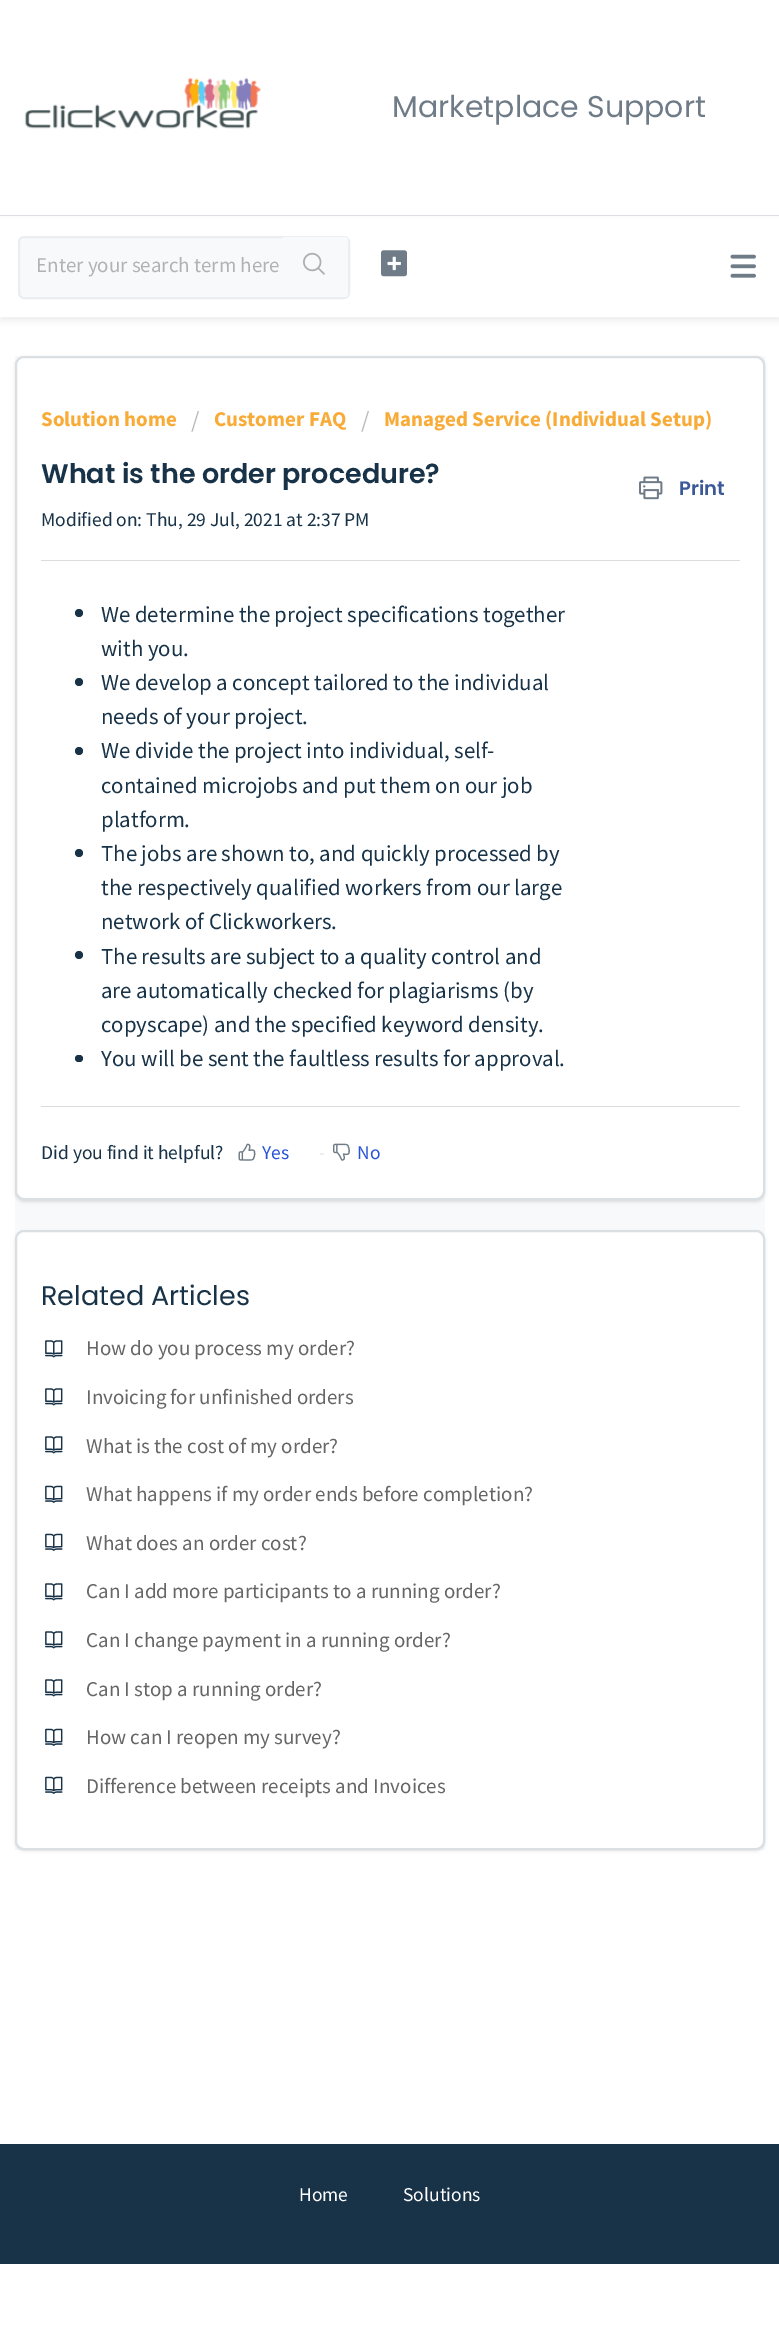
%!PS
<< /PageSize [779 2341] /PageUsesTransparency true >> setpagedevice
/rgb { dup -16 bitshift 255 div exch dup -8 bitshift 255 and 255 div exch 255 and 255 div setrgbcolor } def
/font { [ exch dup neg 0 0 3 -1 roll 0 0 ] selectfont } def
/text { moveto show } def
/alpha { dup .setfillconstantalpha .setstrokeconstantalpha } def
/circle { newpath 0 360 arc closepath } def
/roundrect { 5 dict begin { /r /h /w /y /x } { exch def } forall
  x r add y moveto x w add y 2 copy h add r arct x w add y h add x 1 index r arct
  x y h add x y r arct x y 2 copy exch w add exch r arct closepath end } def
/shadow { 12 dict begin { /a /b /q /h /w /y /x } { exch def } forall gsave /was 0 def
  9 -2 -9 { dup b mul 4 div /e exch def 1 sub .425 mul 2.718 exch exp 1 add a .99 .min exch div /now exch def
    1 1 now sub 1 was sub div sub alpha /was now def
    w h .min e 2 mul add 0 gt { x e sub y e sub w e 2 mul add h e 2 mul add
      q e add b .6 mul add w h .min 2 div e add .min 0 .max roundrect fill } if } for grestore end } def
/picture { 5 dict begin { /h /w /y /x /name } { exch def } forall
  gsave x y translate w h scale
  w h 8 [w 0 0 h 0 0] name (r) file false 3 colorimage grestore end } def
0 .pushpdf14devicefilter
0 2341 translate 1 -1 scale
4 setmiterlimit
/s1 { /Poppins-Regular 30 font 16#6F7C87 rgb } def
/s2 { /SourceSansPro-Regular 21 font 16#B2B2B2 rgb } def
/s3 { /SourceSansPro-Bold 21 font 16#F8AB37 rgb } def
/s4 { /SourceSansPro-Regular 24 font 16#BBBBBB rgb } def
/s5 { /Poppins-SemiBold 27 font 16#183247 rgb } def
/s6 { /Poppins-SemiBold 19.5 font 16#3B5998 rgb } def
/s7 { /SourceSansPro-Regular 19.5 font 16#183247 rgb } def
/s8 { /SourceSansPro-Regular 22.8 font 16#183247 rgb } def
/s9 { /SourceSansPro-Regular 19.5 font 16#2753D7 rgb } def
/s10 { /SourceSansPro-Regular 19.5 font 16#E5E5E5 rgb } def
/s11 { /Poppins-Regular 27 font 16#183247 rgb } def
/s12 { /SourceSansPro-Regular 21 font 16#666666 rgb } def
/s13 { /SourceSansPro-Regular 19.5 font 16#FFFFFF rgb } def
16#FFFFFF rgb
0 0 779 2341 rectfill
16#DADFE3 rgb
0 215 779 1 rectfill
(pic1.raw) 24 77 237 52 picture
s1
(Marketplace Support) 392 117 text
16#EEEEEE rgb
0 221 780 100 0 3 1 shadow
16#FFFFFF rgb
0 218 779 99 rectfill
(pic2.raw) 730 254 26 24 picture
16#F8F9FA rgb
19 237 330 61 5 roundrect gsave fill grestore
16#EBEEF0 rgb
2 setlinewidth
stroke
s2
(Enter your search term here) 36 272 text
16#F8F9FA rgb
282 237 66 60 3 roundrect fill
(pic3.raw) 303 252 22 23 picture
(pic4.raw) 381 250 26 27 picture
15 356 750 1494 rectfill
16#3F3F44 rgb
15 357 750 845 9 1.5 0.15 shadow
16#FFFFFF rgb
16 357 748 842 8 roundrect gsave fill grestore
16#DADFE3 rgb
stroke
s3
(Solution home) 41 426 text
s4
(/) 191 428 text
s3
(Customer FAQ) 214 426 text
s4
(/) 361 428 text
s3
(Managed Service \(Individual Setup\)) 384 426 text
s5
(What is the order procedure?) 41 483 text
(pic5.raw) 639 476 24 24 picture
s6
(Print) 679 495 text
s7
(Modified on: Thu, 29 Jul, 2021 at 2:37 PM) 41 526 text
16#DCDCDC rgb
41 560 699 1 rectfill
16#183247 rgb
79 613 4 circle fill
s8
(We determine the project specifications together) 101 622 text
(with you.) 101 656 text
79 682 4 circle fill
(We develop a concept tailored to the individual) 101 690 text
(needs of your project.) 101 724 text
79 751 4 circle fill
(We divide the project into individual, self-) 101 758 text
(contained microjobs and put them on our job) 101 793 text
(platform.) 101 827 text
79 853 4 circle fill
(The jobs are shown to, and quickly processed by) 101 861 text
(the respectively qualified workers from our large) 101 895 text
(network of Clickworkers.) 101 929 text
79 955 4 circle fill
(The results are subject to a quality control and) 101 964 text
(are automatically checked for plagiarisms \(by) 101 998 text
(copyscape\) and the specified keyword density.) 101 1032 text
75 1055 8 7 3.5 roundrect fill
(You will be sent the faultless results for approval.) 101 1066 text
16#DCDCDC rgb
41 1106 699 1 rectfill
s7
(Did you find it helpful?) 41 1159 text
(pic6.raw) 238 1143 18 18 picture
s9
(Yes) 262 1159 text
s10
(-) 319 1159 text
(pic7.raw) 333 1143 18 18 picture
s9
(No) 357 1159 text
16#3F3F44 rgb
15 1232 750 619 9 1.5 0.15 shadow
16#FFFFFF rgb
16 1231 748 618 8 roundrect gsave fill grestore
16#DADFE3 rgb
stroke
s11
(Related Articles) 41 1305 text
(pic8.raw) 45 1340 18 18 picture
s12
(How do you process my order?) 86 1355 text
(pic8.raw) 45 1388 18 18 picture
(Invoicing for unfinished orders) 86 1404 text
(pic8.raw) 45 1436 18 18 picture
(What is the cost of my order?) 86 1453 text
(pic9.raw) 45 1485 18 18 picture
(What happens if my order ends before completion?) 86 1501 text
(pic9.raw) 45 1533 18 18 picture
(What does an order cost?) 86 1550 text
(pic8.raw) 45 1583 18 18 picture
(Can I add more participants to a running order?) 86 1598 text
(pic8.raw) 45 1631 18 18 picture
(Can I change payment in a running order?) 86 1647 text
(pic8.raw) 45 1679 18 18 picture
(Can I stop a running order?) 86 1696 text
(pic9.raw) 45 1728 18 18 picture
(How can I reopen my survey?) 86 1744 text
(pic9.raw) 45 1776 18 18 picture
(Difference between receipts and Invoices) 86 1793 text
16#183247 rgb
0 2144 779 120 rectfill
s13
(Home) 299 2201 text
(Solutions) 403 2201 text
.poppdf14devicefilter showpage
